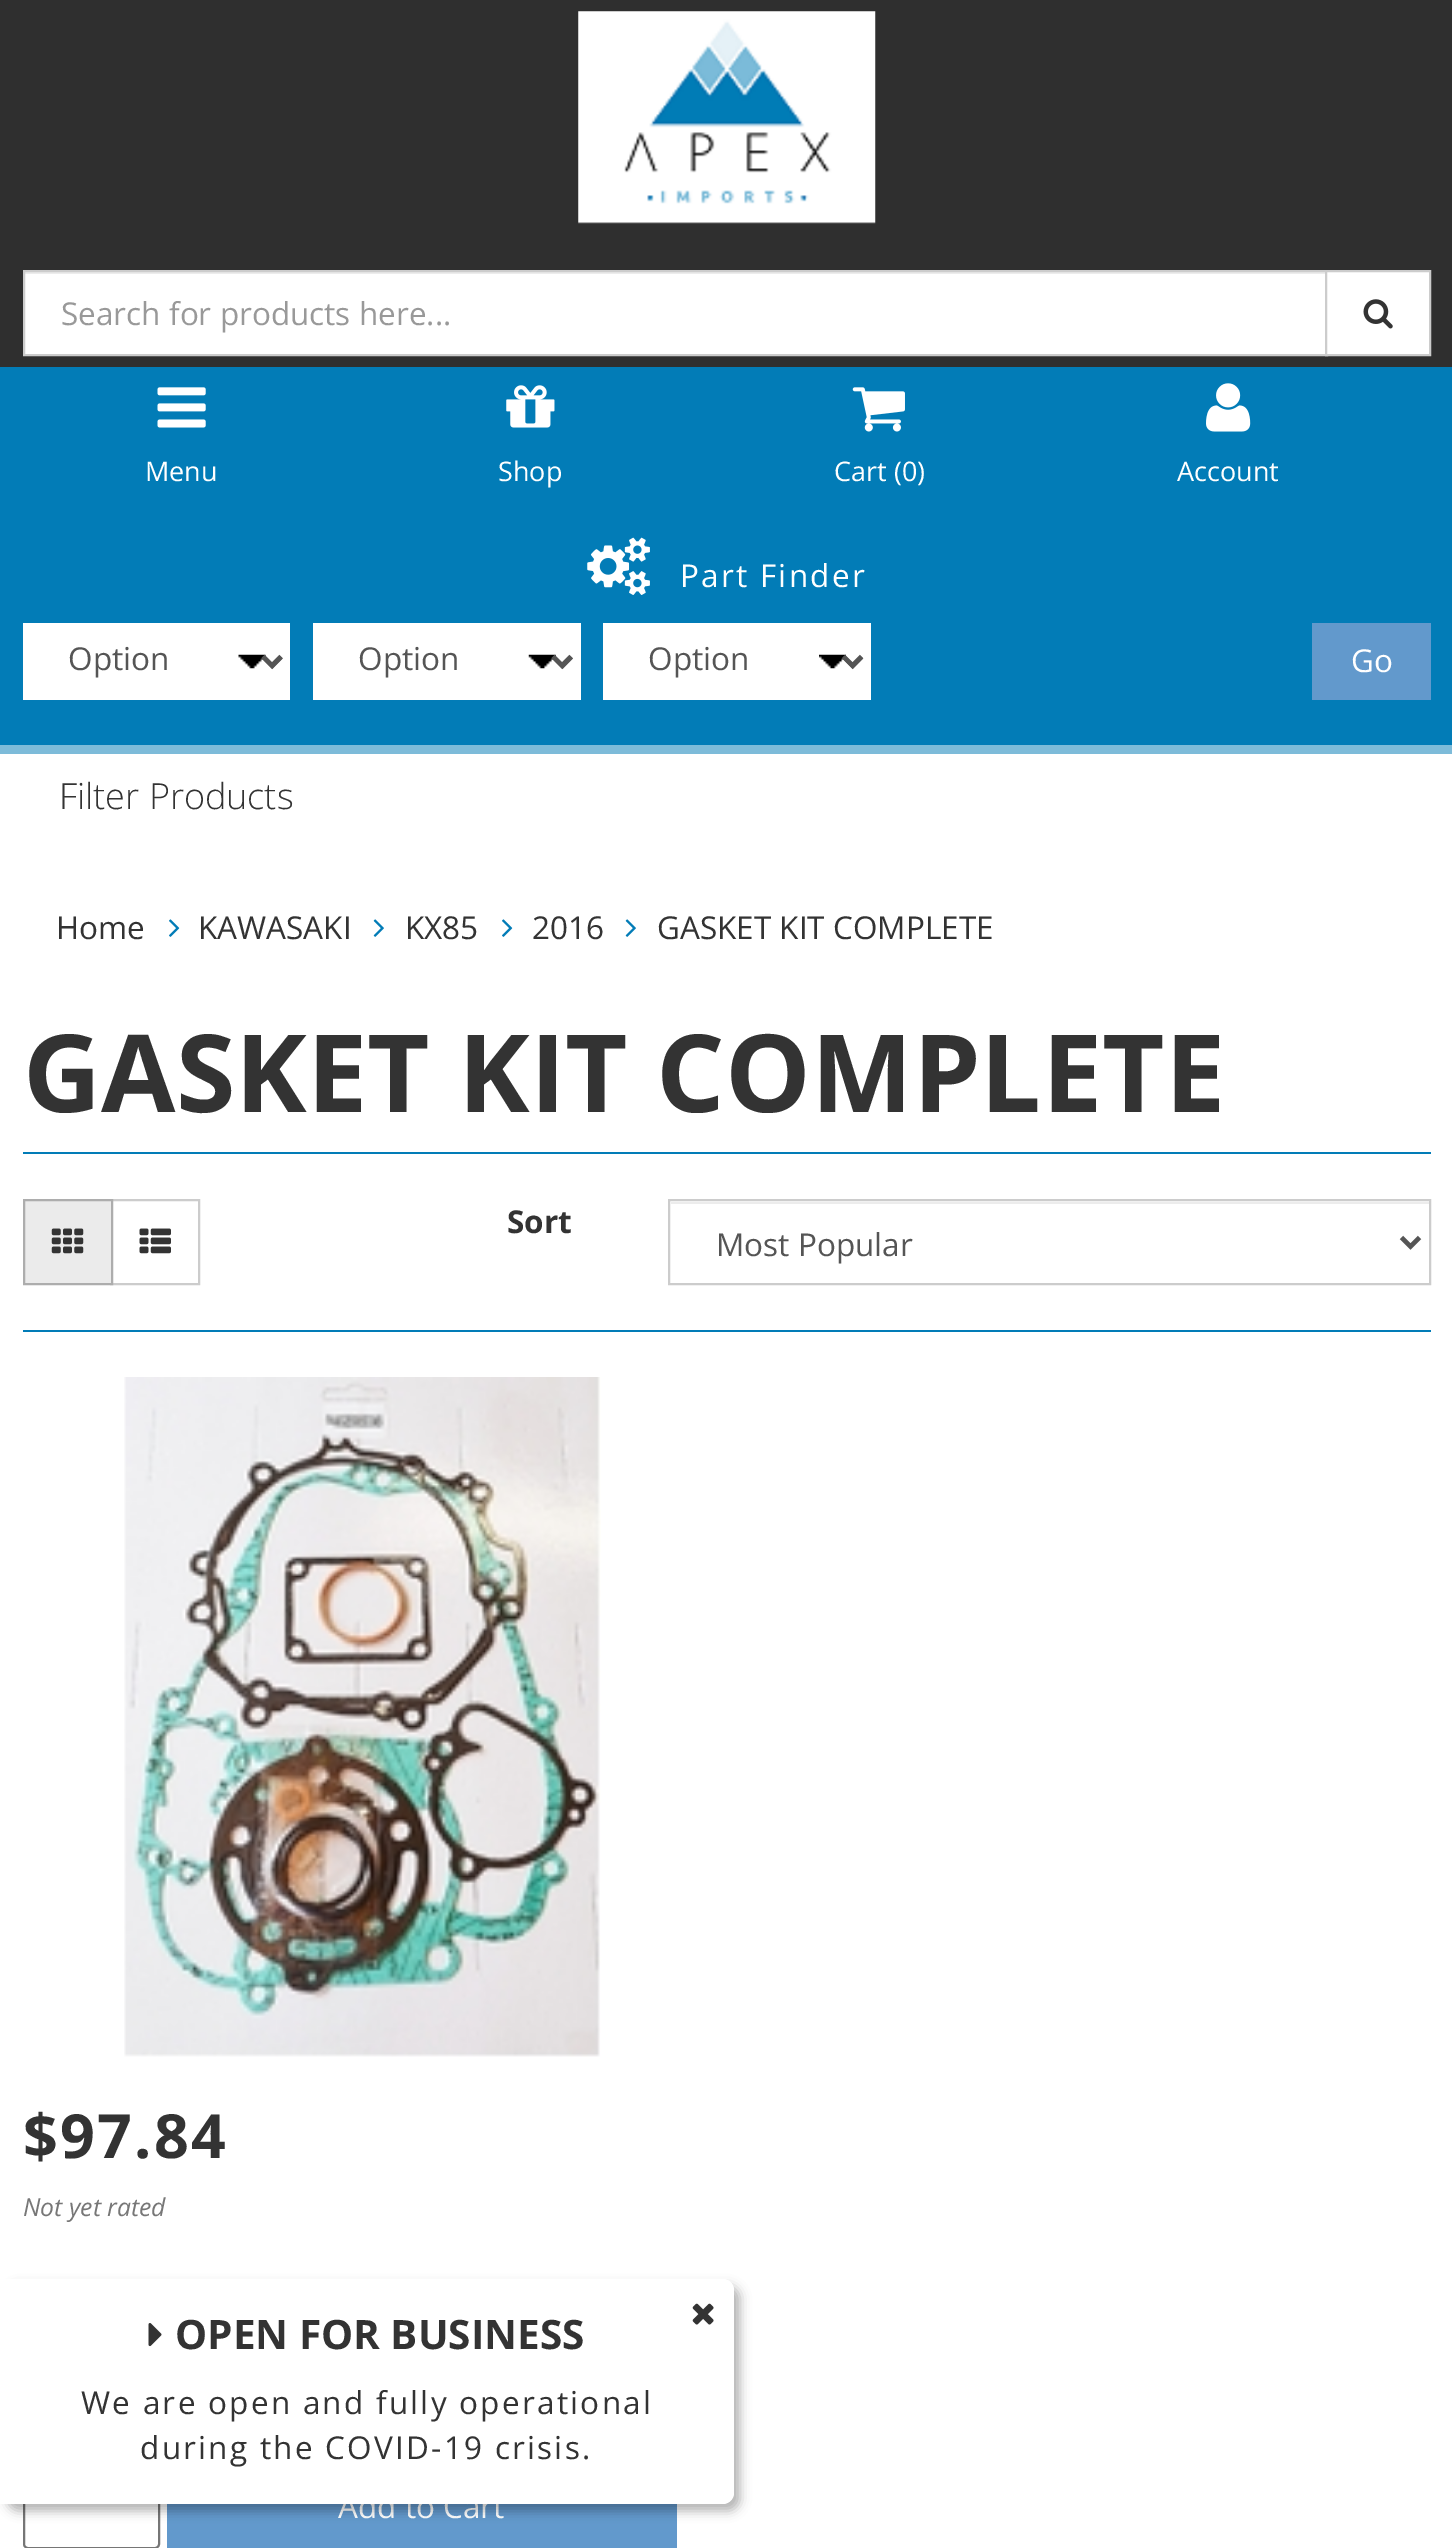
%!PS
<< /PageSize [1452 2548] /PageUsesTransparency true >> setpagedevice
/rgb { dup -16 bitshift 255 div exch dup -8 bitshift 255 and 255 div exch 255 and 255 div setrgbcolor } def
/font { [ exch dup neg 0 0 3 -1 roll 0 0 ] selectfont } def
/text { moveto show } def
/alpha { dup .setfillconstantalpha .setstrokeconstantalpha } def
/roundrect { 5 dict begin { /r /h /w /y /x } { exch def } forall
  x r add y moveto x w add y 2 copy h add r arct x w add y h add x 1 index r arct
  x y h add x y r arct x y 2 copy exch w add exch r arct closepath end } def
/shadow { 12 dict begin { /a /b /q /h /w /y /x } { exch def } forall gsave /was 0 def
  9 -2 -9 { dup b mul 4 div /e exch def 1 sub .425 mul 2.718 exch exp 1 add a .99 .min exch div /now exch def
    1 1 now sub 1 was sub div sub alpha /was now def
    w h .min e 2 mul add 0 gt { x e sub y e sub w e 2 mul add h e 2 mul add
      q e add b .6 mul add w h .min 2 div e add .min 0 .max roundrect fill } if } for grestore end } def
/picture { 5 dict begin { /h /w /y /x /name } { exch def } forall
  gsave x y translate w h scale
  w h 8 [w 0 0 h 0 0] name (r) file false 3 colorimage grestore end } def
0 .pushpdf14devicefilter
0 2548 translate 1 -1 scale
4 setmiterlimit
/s1 { /OpenSans-Regular 31.5 font 16#999999 rgb } def
/s2 { /OpenSans-Regular 27 font 16#FFFFFF rgb } def
/s3 { /OpenSans-Regular 31.5 font 16#555555 rgb } def
/s4 { /OpenSans-Regular 31.5 font 16#FFFFFF rgb } def
/s5 { /OpenSans-Light 36 font 16#333333 rgb } def
/s6 { /OpenSans-Regular 31.5 font 16#333333 rgb } def
/s7 { /OpenSans-Bold 108 font 16#333333 rgb } def
/s8 { /OpenSans-Bold 31.5 font 16#333333 rgb } def
/s9 { /OpenSans-Italic 24.75 font 16#777777 rgb } def
/s10 { /OpenSans-Bold 40.5 font 16#333333 rgb } def
16#FFFFFF rgb
0 0 1452 2548 rectfill
16#2F2F2F rgb
0 0 1452 367 rectfill
(pic1.raw) 578 11 298 213 picture
16#FFFFFF rgb
25 274 1300 80 rectfill
16#ECECEC rgb
25 272 1300 2 rectfill
16#CCCCCC rgb
2 setlinewidth
24 271 1303 84 rectstroke
s1
(Search for products here...) 61 325 text
16#FFFFFF rgb
1326 271 moveto 1430 271 lineto 1430 355 lineto 1326 355 lineto closepath gsave fill grestore
16#CCCCCC rgb
stroke
(pic2.raw) 1363 299 30 30 picture
16#027CB7 rgb
0 367 1452 378 rectfill
(pic3.raw) 157 387 49 41 picture
s2
(Menu) 145 481 text
(pic4.raw) 506 385 49 43 picture
(Shop) 498 481 text
(pic5.raw) 852 387 53 45 picture
(Cart \(0\)) 834 481 text
(pic6.raw) 1206 383 45 49 picture
(Account) 1177 481 text
(pic7.raw) 587 537 63 58 picture
/OpenSans-Regular 31.5 font
680 587 moveto 2.25 0 (Part Finder) ashow
23 623 267 77 rectfill
(pic8.raw) 238 654 45 16 picture
16#555555 rgb
4.5 setlinewidth
263 656.5 moveto 272 665.5 lineto 281 656.5 lineto stroke
(Option) 68 670 text
16#FFFFFF rgb
313 623 268 77 rectfill
(pic9.raw) 528 654 45 16 picture
16#555555 rgb
553 656.5 moveto 562 665.5 lineto 571 656.5 lineto stroke
(Option) 358 670 text
16#FFFFFF rgb
603 623 268 77 rectfill
(pic10.raw) 819 654 45 16 picture
16#555555 rgb
843.5 656.5 moveto 852.5 665.5 lineto 861.5 656.5 lineto stroke
(Option) 648 670 text
16#6299CC rgb
1312 623 119 77 rectfill
s4
(Go) 1351 672 text
16#7DBBD9 rgb
0 745 1452 9 rectfill
s5
(Filter Products) 59 809 text
s6
(Home) 56 939 text
(pic11.raw) 169 919 11 18 picture
(KAWASAKI) 198 939 text
(pic12.raw) 373 919 11 18 picture
(KX85) 405 939 text
(pic11.raw) 502 919 11 18 picture
(2016) 532 939 text
(pic12.raw) 625 919 11 18 picture
(GASKET KIT COMPLETE) 657 939 text
16#027CB7 rgb
23 1152 1408 2 rectfill
s7
(GASKET KIT COMPLETE) 23 1112 text
16#CCCCCC rgb
2 setlinewidth
111 1200 88 84 rectstroke
16#EBEBEB rgb
24 1200 moveto 112 1200 lineto 112 1284 lineto 24 1284 lineto closepath gsave fill grestore
16#ADADAD rgb
stroke
(pic13.raw) 51 1228 33 26 picture
(pic14.raw) 139 1228 32 26 picture
s8
(Sort) 507 1233 text
16#ECECEC rgb
671 1202 758 2 rectfill
16#CCCCCC rgb
669 1200 761 84 rectstroke
16#555555 rgb
4.5 setlinewidth
1401.5 1237.5 moveto 1410.5 1246.5 lineto 1419.5 1237.5 lineto stroke
s3
(Most Popular) 716 1256 text
16#027CB7 rgb
23 1330 1408 2 rectfill
(pic15.raw) 124 1377 477 680 picture
/OpenSans-Bold 61 font
16#333333 rgb
23 2158 moveto 2.25 0 ($97.84) ashow
s9
(Not yet rated) 23 2216 text
16#767676 rgb
2 setlinewidth
24 2465 135 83 4 roundrect stroke
16#6299CC rgb
167 2504 510 44 rectfill
s4
(Add to Cart) 338 2518 text
16#000000 rgb
7 2286 733 225 11 5.5 0.3 shadow
16#FFFFFF rgb
0 2279 moveto 723 2279 lineto 729 2279 734 2284 734 2290 curveto 734 2493 lineto 734 2499 729 2504 723 2504 curveto 0 2504 lineto closepath fill
(pic16.raw) 692 2303 22 22 picture
(pic17.raw) 148 2323 14 24 picture
s10
(OPEN FOR BUSINESS) 175 2349 text
/OpenSans-Regular 31.5 font
81 2414 moveto 2.25 0 (We are open and fully operational) ashow
140 2459 moveto 2.25 0 (during the COVID-19 crisis.) ashow
.poppdf14devicefilter showpage
